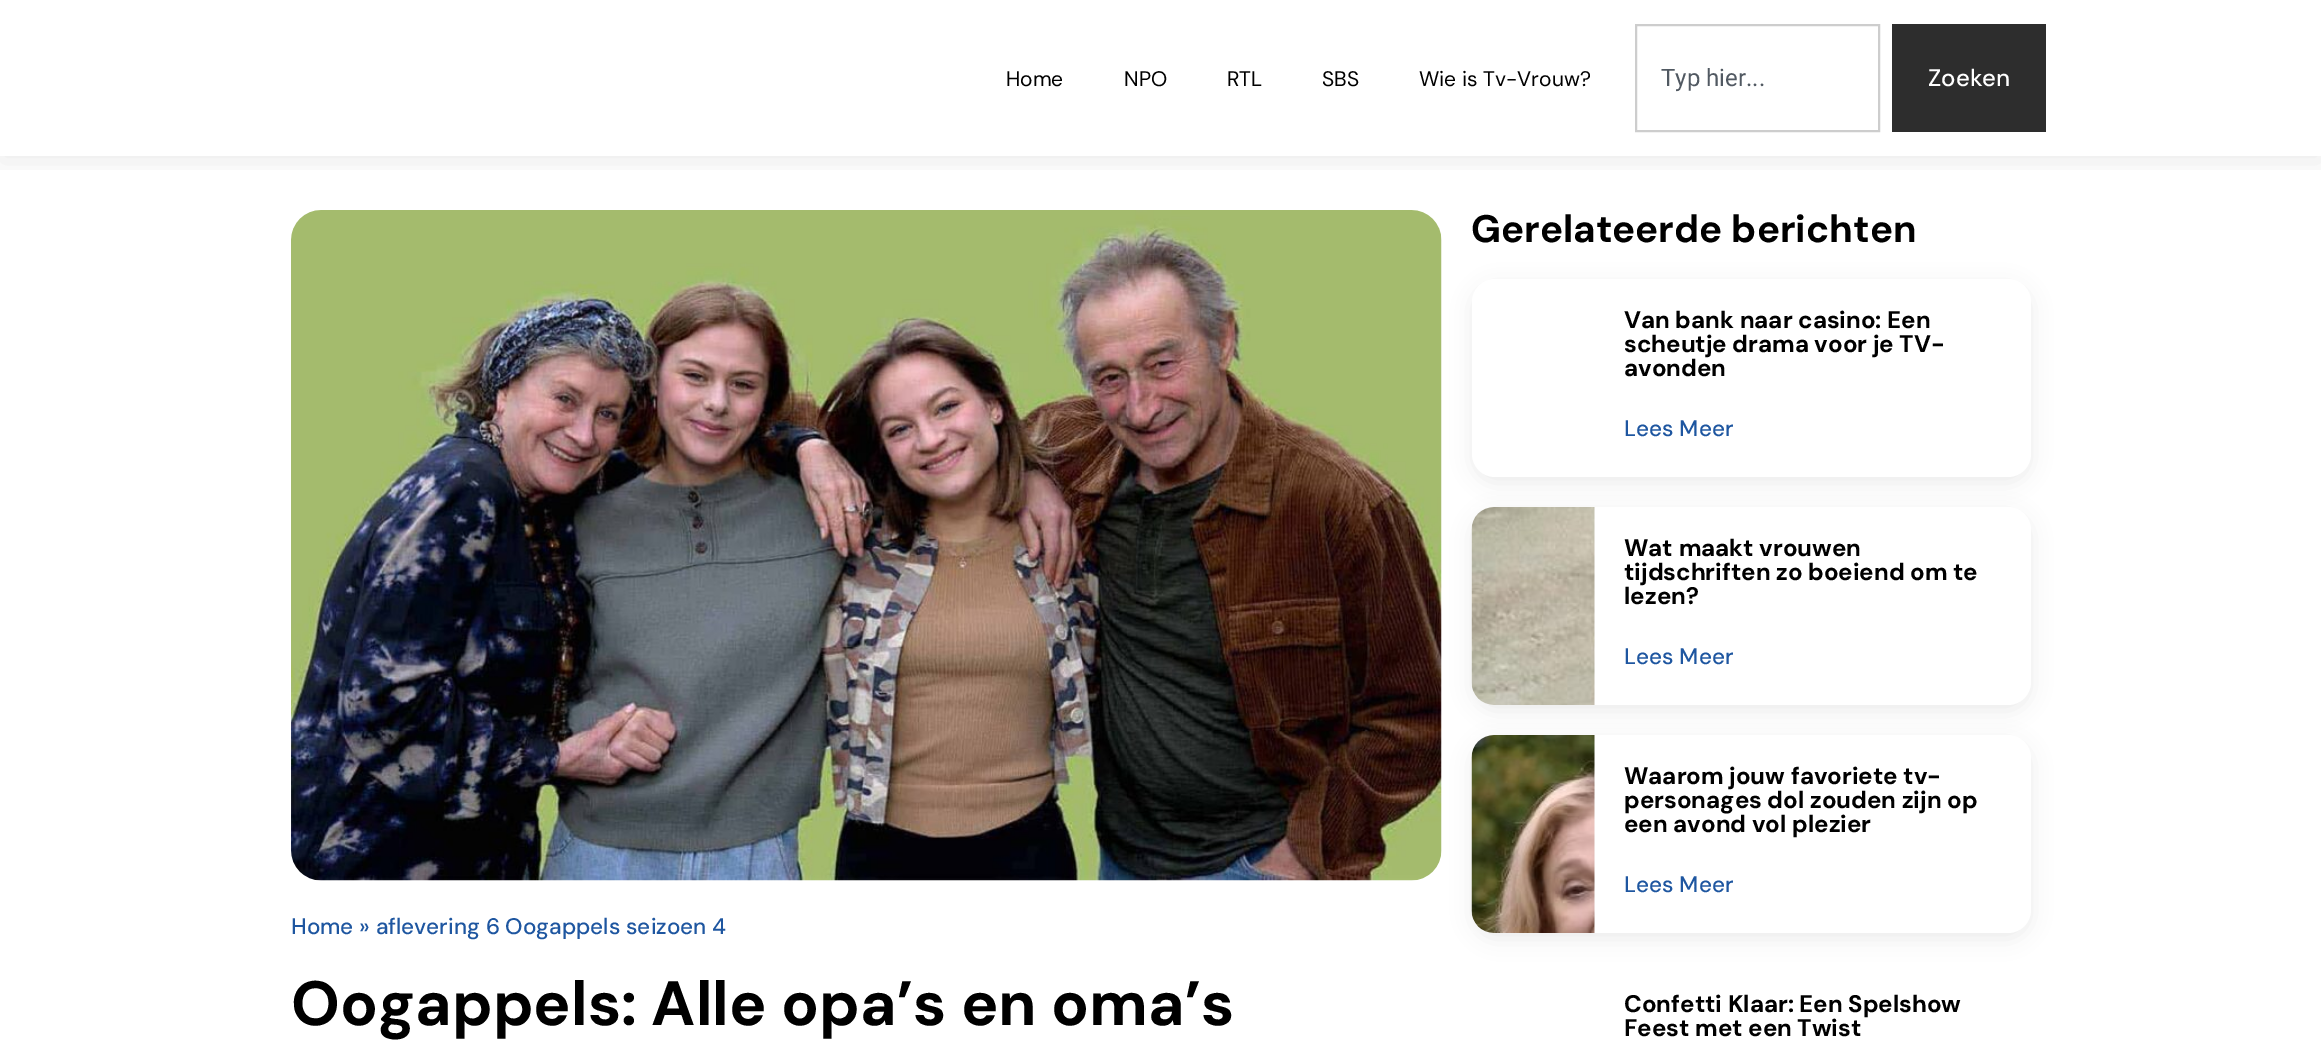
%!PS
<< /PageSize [2321 1051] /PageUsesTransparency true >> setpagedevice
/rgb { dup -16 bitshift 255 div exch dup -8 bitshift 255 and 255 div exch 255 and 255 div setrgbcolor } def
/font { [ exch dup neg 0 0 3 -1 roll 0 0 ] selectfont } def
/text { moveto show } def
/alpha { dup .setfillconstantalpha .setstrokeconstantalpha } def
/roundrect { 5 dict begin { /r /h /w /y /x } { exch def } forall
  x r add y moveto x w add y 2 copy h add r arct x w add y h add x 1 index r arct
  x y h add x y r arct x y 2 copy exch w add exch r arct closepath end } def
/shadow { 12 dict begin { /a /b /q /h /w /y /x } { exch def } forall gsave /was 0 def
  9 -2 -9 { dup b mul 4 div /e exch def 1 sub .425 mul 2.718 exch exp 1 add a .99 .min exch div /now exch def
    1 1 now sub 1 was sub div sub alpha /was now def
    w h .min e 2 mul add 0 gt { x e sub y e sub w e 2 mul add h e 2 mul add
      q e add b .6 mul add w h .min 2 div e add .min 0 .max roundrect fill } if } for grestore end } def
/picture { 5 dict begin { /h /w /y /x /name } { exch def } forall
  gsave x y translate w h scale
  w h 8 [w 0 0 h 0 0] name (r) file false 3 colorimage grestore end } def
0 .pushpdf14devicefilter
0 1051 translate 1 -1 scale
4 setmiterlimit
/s1 { /DMSans-Regular 21 font 16#000000 rgb } def
/s2 { /Roboto-Regular 24 font 16#515962 rgb } def
/s3 { /DMSans-Medium 24 font 16#FFFFFF rgb } def
/s4 { /DMSans-Medium 22.5 font 16#1E56A0 rgb } def
/s5 { /DMSans-Bold 62.4 font 16#000000 rgb } def
/s6 { /DMSans-Bold 38.4 font 16#000000 rgb } def
/s7 { /DMSans-Bold 24 font 16#000000 rgb } def
16#FFFFFF rgb
0 0 2321 1051 rectfill
gsave
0 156 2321 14 rectclip
16#000000 rgb
0 6 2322 156 0 15 0.07 shadow
grestore
s1
(Home) 1006 86 text
(NPO) 1124 86 text
(RTL) 1227 86 text
(SBS) 1322 86 text
(Wie is Tv-Vrouw?) 1419 86 text
16#CDCDCD rgb
2 setlinewidth
1636 25 243 106 rectstroke
s2
(Typ hier...) 1661 86 text
16#2D2D2D rgb
1892 24 154 108 rectfill
s3
(Zoeken) 1928 86 text
(pic1.raw) 291 210 1151 671 picture
s4
(Home » aflevering 6 Oogappels seizoen 4) 291 934 text
s5
(Oogappels: Alle opa’s en oma’s) 291 1025 text
s6
(Gerelateerde berichten) 1471 242 text
1472 285 559 198 23 10 0.07 shadow
16#FFFFFF rgb
1472 279 559 198 23 roundrect fill
s7
(Van bank naar casino: Een) 1624 328 text
(scheutje drama voor je TV-) 1624 352 text
(avonden) 1624 376 text
s4
(Lees Meer) 1624 436 text
16#000000 rgb
1472 513 559 198 23 10 0.07 shadow
16#FFFFFF rgb
1472 507 559 198 23 roundrect fill
(pic2.raw) 1471 507 124 198 picture
s7
(Wat maakt vrouwen) 1624 556 text
(tijdschriften zo boeiend om te) 1624 580 text
(lezen?) 1624 604 text
s4
(Lees Meer) 1624 664 text
16#000000 rgb
1472 741 559 198 23 10 0.07 shadow
16#FFFFFF rgb
1472 735 559 198 23 roundrect fill
(pic3.raw) 1471 735 124 198 picture
s7
(Waarom jouw favoriete tv-) 1624 784 text
(personages dol zouden zijn op) 1624 808 text
(een avond vol plezier) 1624 832 text
s4
(Lees Meer) 1624 892 text
s7
(Confetti Klaar: Een Spelshow) 1624 1012 text
(Feest met een Twist) 1624 1036 text
.poppdf14devicefilter showpage
